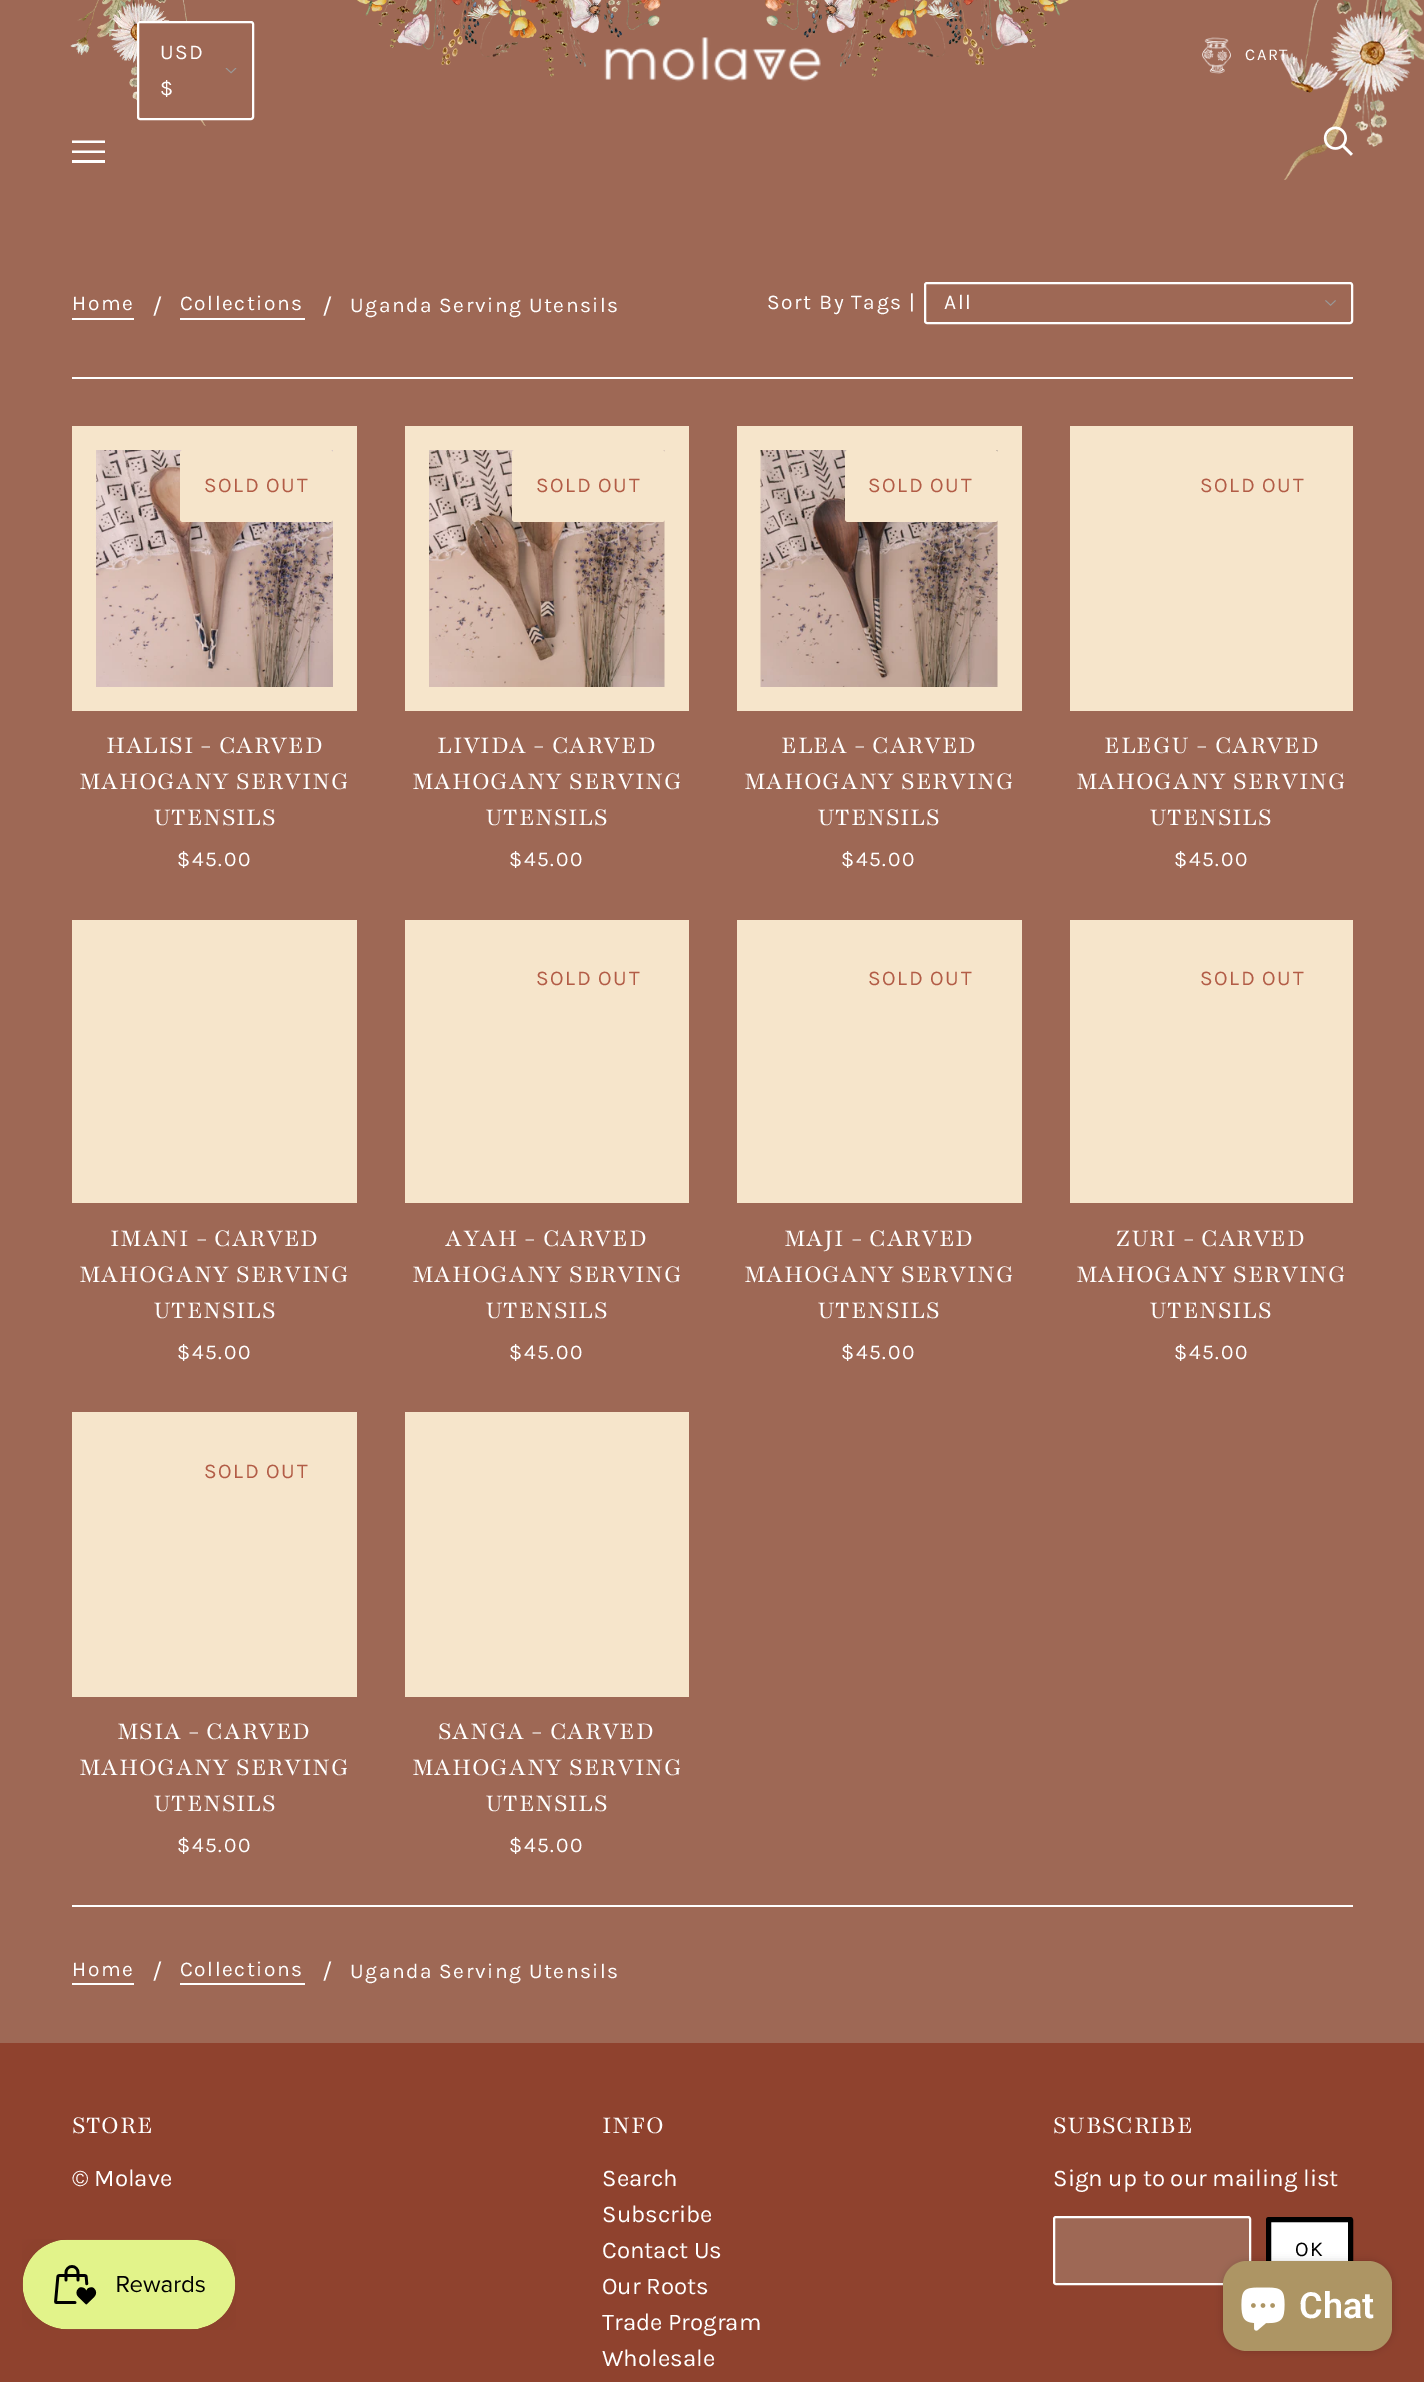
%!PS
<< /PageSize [1424 2382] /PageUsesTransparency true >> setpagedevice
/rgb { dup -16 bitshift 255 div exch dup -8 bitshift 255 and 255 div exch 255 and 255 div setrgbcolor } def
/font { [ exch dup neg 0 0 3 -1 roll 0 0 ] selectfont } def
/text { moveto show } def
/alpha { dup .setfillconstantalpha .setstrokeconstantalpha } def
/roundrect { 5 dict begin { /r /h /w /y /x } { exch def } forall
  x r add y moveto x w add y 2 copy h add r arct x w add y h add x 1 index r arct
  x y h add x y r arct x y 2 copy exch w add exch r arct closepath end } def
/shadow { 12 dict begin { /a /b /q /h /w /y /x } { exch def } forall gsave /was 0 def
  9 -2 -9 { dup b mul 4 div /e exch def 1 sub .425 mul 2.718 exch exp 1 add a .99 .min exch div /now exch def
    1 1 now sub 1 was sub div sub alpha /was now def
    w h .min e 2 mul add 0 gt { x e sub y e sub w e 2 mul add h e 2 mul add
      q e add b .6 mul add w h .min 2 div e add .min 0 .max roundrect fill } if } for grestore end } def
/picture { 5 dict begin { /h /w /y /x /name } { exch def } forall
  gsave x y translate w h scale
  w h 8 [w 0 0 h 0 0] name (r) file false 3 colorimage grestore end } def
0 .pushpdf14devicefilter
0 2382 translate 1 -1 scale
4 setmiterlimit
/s1 { /Karla-Regular 24 font 16#FFFFFF rgb } def
/s2 { /Roboto-SemiBold 36 font 16#FFFFFF rgb } def
16#9E6855 rgb
0 0 1424 2382 rectfill
(pic1.raw) 70 0 136 126 picture
(pic2.raw) 1280 0 144 180 picture
(pic3.raw) 357 0 712 77 picture
137 21 117 99 3 roundrect fill
(pic4.raw) 225 68 12 6 picture
16#FFFFFF rgb
2 setlinewidth
138 22 115 97 2 roundrect stroke
/Karla-Regular 21 font
160 59 moveto 1.5 0 (USD) ashow
160 95 moveto 1.5 0 ($) ashow
(pic5.raw) 604 37 217 45 picture
(pic6.raw) 1202 37 29 37 picture
/Karla-Regular 16.5 font
1245 60 moveto 1.5 0 (CART) ashow
72 143 moveto 72 140.5 lineto 105 140.5 lineto 105 143 lineto closepath 72 153 moveto 72 150.5 lineto 105 150.5 lineto 105 153 lineto closepath 72 163 moveto 72 160 lineto 105 160 lineto 105 163 lineto closepath fill
(pic7.raw) 1323 126 30 30 picture
/Karla-Regular 21 font
72 310 moveto 1.5 0 (Home) ashow
72 318 62 2 rectfill
s1
(/) 152 314 text
/Karla-Regular 21 font
180 310 moveto 1.5 0 (Collections) ashow
180 318 125 2 rectfill
s1
(/) 322 314 text
/Karla-Regular 21 font
350 312 moveto 1.5 0 (Uganda Serving Utensils) ashow
767 309 moveto 1.5 0 (Sort By Tags |) ashow
(pic8.raw) 1325 300 11 6 picture
925 283 427 40 2 roundrect stroke
944 309 moveto 1.5 0 (All) ashow
72 377 1281 2 rectfill
16#F6E5CB rgb
72 426 285 285 rectfill
(pic9.raw) 96 450 237 237 picture
180 450 153 72 3 roundrect fill
16#B25C46 rgb
204 492 moveto 1.5 0 (SOLD OUT) ashow
/Playfair-Regular 27 font
16#FFFFFF rgb
106 753 moveto 0.7 0 (HALISI - CARVED) ashow
79 789 moveto 0.7 0 (MAHOGANY SERVING) ashow
153 825 moveto 0.7 0 (UTENSILS) ashow
/Karla-Regular 21 font
177 866 moveto 1.5 0 ($45.00) ashow
16#F6E5CB rgb
405 426 284 285 rectfill
(pic10.raw) 429 450 236 237 picture
512 450 153 72 3 roundrect fill
16#B25C46 rgb
536 492 moveto 1.5 0 (SOLD OUT) ashow
/Playfair-Regular 27 font
16#FFFFFF rgb
437 753 moveto 0.7 0 (LIVIDA - CARVED) ashow
412 789 moveto 0.7 0 (MAHOGANY SERVING) ashow
485 825 moveto 0.7 0 (UTENSILS) ashow
/Karla-Regular 21 font
509 866 moveto 1.5 0 ($45.00) ashow
16#F6E5CB rgb
737 426 285 285 rectfill
(pic11.raw) 760 450 238 237 picture
845 450 153 72 3 roundrect fill
16#B25C46 rgb
868 492 moveto 1.5 0 (SOLD OUT) ashow
/Playfair-Regular 27 font
16#FFFFFF rgb
781 753 moveto 0.7 0 (ELEA - CARVED) ashow
744 789 moveto 0.7 0 (MAHOGANY SERVING) ashow
817 825 moveto 0.7 0 (UTENSILS) ashow
/Karla-Regular 21 font
841 866 moveto 1.5 0 ($45.00) ashow
16#F6E5CB rgb
1070 426 283 285 rectfill
16#B25C46 rgb
1200 492 moveto 1.5 0 (SOLD OUT) ashow
/Playfair-Regular 27 font
16#FFFFFF rgb
1104 753 moveto 0.7 0 (ELEGU - CARVED) ashow
1076 789 moveto 0.7 0 (MAHOGANY SERVING) ashow
1149 825 moveto 0.7 0 (UTENSILS) ashow
/Karla-Regular 21 font
1174 866 moveto 1.5 0 ($45.00) ashow
16#F6E5CB rgb
72 920 285 283 rectfill
/Playfair-Regular 27 font
16#FFFFFF rgb
110 1246 moveto 0.7 0 (IMANI - CARVED) ashow
79 1282 moveto 0.7 0 (MAHOGANY SERVING) ashow
153 1318 moveto 0.7 0 (UTENSILS) ashow
/Karla-Regular 21 font
177 1359 moveto 1.5 0 ($45.00) ashow
16#F6E5CB rgb
405 920 284 283 rectfill
16#B25C46 rgb
536 985 moveto 1.5 0 (SOLD OUT) ashow
/Playfair-Regular 27 font
16#FFFFFF rgb
445 1246 moveto 0.7 0 (AYAH - CARVED) ashow
412 1282 moveto 0.7 0 (MAHOGANY SERVING) ashow
485 1318 moveto 0.7 0 (UTENSILS) ashow
/Karla-Regular 21 font
509 1359 moveto 1.5 0 ($45.00) ashow
16#F6E5CB rgb
737 920 285 283 rectfill
16#B25C46 rgb
868 985 moveto 1.5 0 (SOLD OUT) ashow
/Playfair-Regular 27 font
16#FFFFFF rgb
784 1246 moveto 0.7 0 (MAJI - CARVED) ashow
744 1282 moveto 0.7 0 (MAHOGANY SERVING) ashow
817 1318 moveto 0.7 0 (UTENSILS) ashow
/Karla-Regular 21 font
841 1359 moveto 1.5 0 ($45.00) ashow
16#F6E5CB rgb
1070 920 283 283 rectfill
16#B25C46 rgb
1200 985 moveto 1.5 0 (SOLD OUT) ashow
/Playfair-Regular 27 font
16#FFFFFF rgb
1116 1246 moveto 0.7 0 (ZURI - CARVED) ashow
1076 1282 moveto 0.7 0 (MAHOGANY SERVING) ashow
1149 1318 moveto 0.7 0 (UTENSILS) ashow
/Karla-Regular 21 font
1174 1359 moveto 1.5 0 ($45.00) ashow
16#F6E5CB rgb
72 1412 285 285 rectfill
16#B25C46 rgb
204 1478 moveto 1.5 0 (SOLD OUT) ashow
/Playfair-Regular 27 font
16#FFFFFF rgb
117 1739 moveto 0.7 0 (MSIA - CARVED) ashow
79 1775 moveto 0.7 0 (MAHOGANY SERVING) ashow
153 1811 moveto 0.7 0 (UTENSILS) ashow
/Karla-Regular 21 font
177 1852 moveto 1.5 0 ($45.00) ashow
16#F6E5CB rgb
405 1412 284 285 rectfill
/Playfair-Regular 27 font
16#FFFFFF rgb
438 1739 moveto 0.7 0 (SANGA - CARVED) ashow
412 1775 moveto 0.7 0 (MAHOGANY SERVING) ashow
485 1811 moveto 0.7 0 (UTENSILS) ashow
/Karla-Regular 21 font
509 1852 moveto 1.5 0 ($45.00) ashow
72 1905 1281 2 rectfill
72 1976 moveto 1.5 0 (Home) ashow
72 1983 62 2 rectfill
s1
(/) 152 1979 text
/Karla-Regular 21 font
180 1976 moveto 1.5 0 (Collections) ashow
180 1983 125 2 rectfill
s1
(/) 322 1979 text
/Karla-Regular 21 font
350 1978 moveto 1.5 0 (Uganda Serving Utensils) ashow
16#8F422E rgb
0 2043 1424 339 rectfill
/Playfair-Regular 27 font
16#FFFFFF rgb
72 2133 moveto 0.7 0 (STORE) ashow
s1
(© Molave) 72 2186 text
/Playfair-Regular 27 font
602 2133 moveto 0.7 0 (INFO) ashow
s1
(Search) 602 2186 text
(Subscribe) 602 2222 text
(Contact Us) 602 2258 text
(Our Roots) 602 2294 text
(Trade Program) 602 2330 text
(Wholesale) 602 2366 text
/Playfair-Regular 27 font
1053 2133 moveto 0.7 0 (SUBSCRIBE) ashow
s1
(Sign up to our mailing list) 1053 2186 text
16#9E6855 rgb
1054 2217 196 67 2 roundrect gsave fill grestore
16#FFFFFF rgb
stroke
1268.5 2219.5 82 63 0.5 roundrect gsave fill grestore
16#000000 rgb
5 setlinewidth
stroke
/Karla-Regular 21 font
1295 2256 moveto 1.5 0 (OK) ashow
(pic12.raw) 22 2239 214 91 picture
1223 2261 169 90 24 4 0.15 shadow
16#AD9564 rgb
1223 2261 169 90 24 roundrect fill
(pic13.raw) 1241 2287 44 44 picture
s2
(Chat) 1299 2318 text
.poppdf14devicefilter showpage
